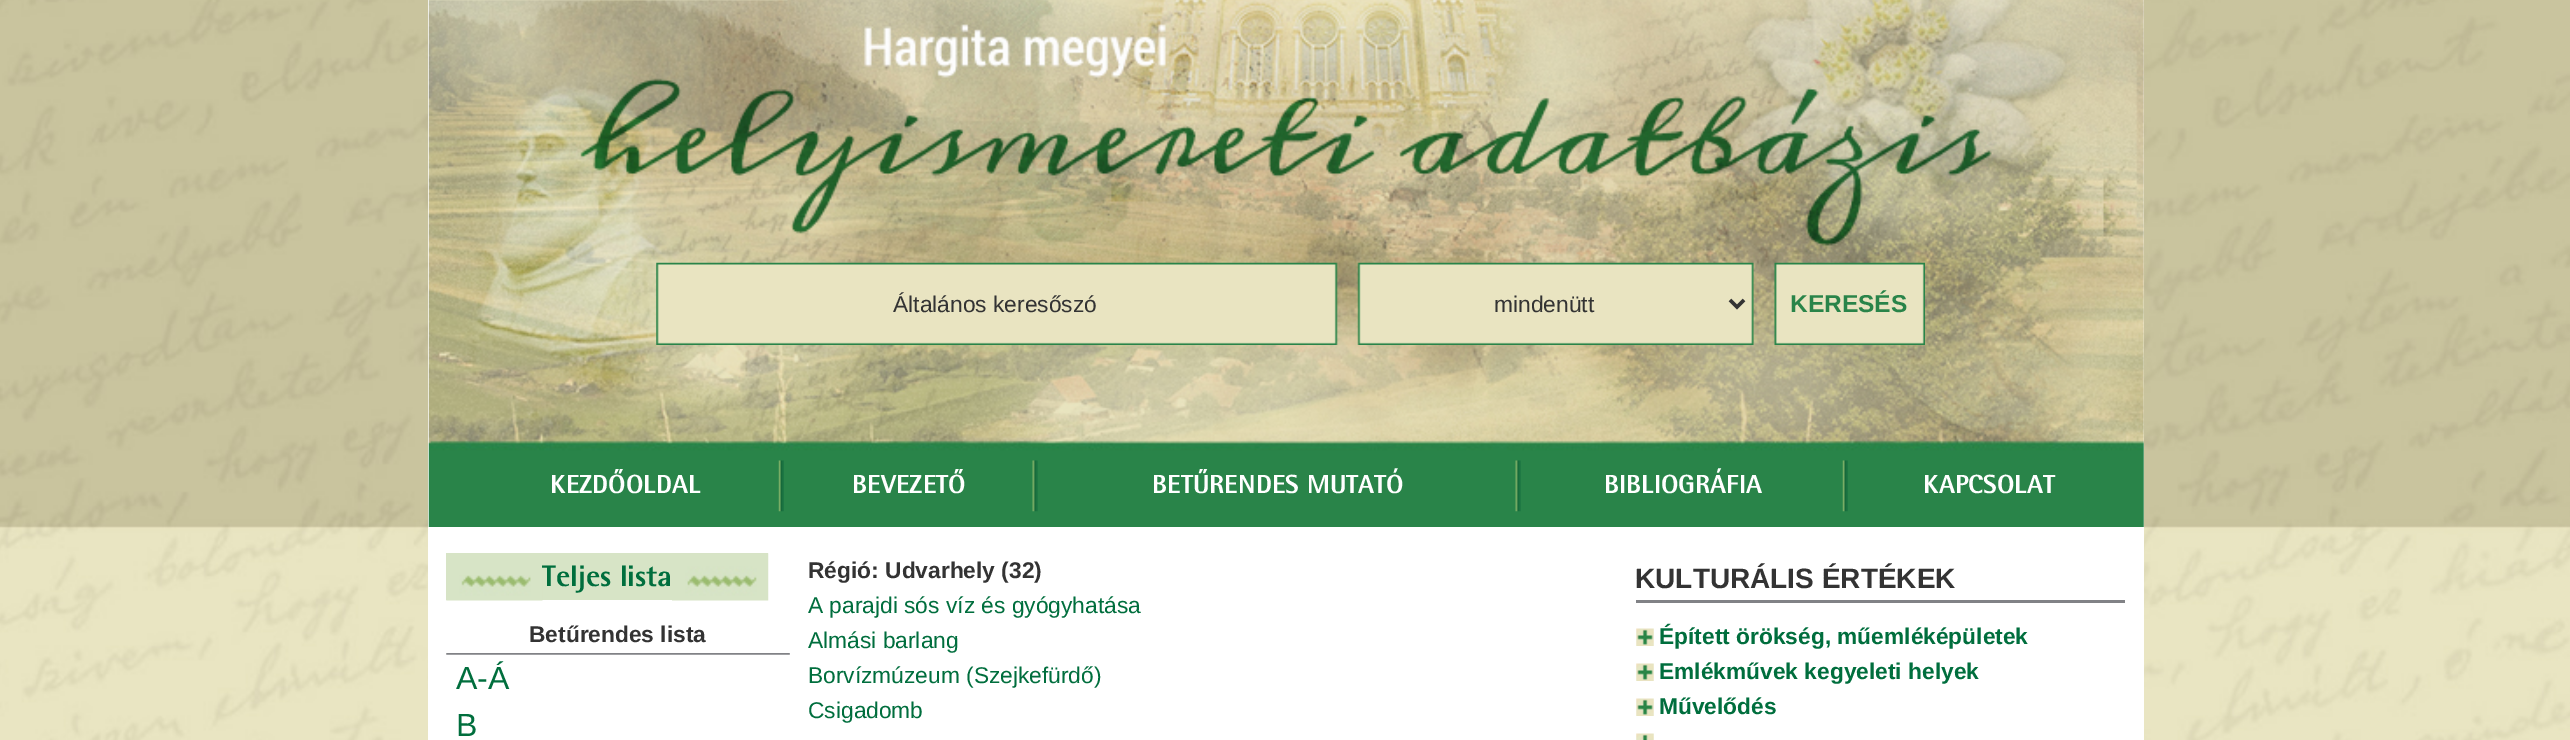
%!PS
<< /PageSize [2570 740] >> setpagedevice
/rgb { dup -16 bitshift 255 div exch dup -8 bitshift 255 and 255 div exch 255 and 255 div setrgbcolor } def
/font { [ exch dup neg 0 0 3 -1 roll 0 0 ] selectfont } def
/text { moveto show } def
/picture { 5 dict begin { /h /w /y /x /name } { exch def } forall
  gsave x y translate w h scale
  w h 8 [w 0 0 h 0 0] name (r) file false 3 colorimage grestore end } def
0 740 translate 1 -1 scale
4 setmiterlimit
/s1 { /LiberationSans-Regular 22.75 font 16#333333 rgb } def
/s2 { /LiberationSans-Bold 24.5 font 16#298449 rgb } def
/s3 { /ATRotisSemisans-ExtraBold 26.25 font 16#FFFFFF rgb } def
/s4 { /ATRotisSemisans-ExtraBold 29.75 font 16#006E3D rgb } def
/s5 { /LiberationSans-Bold 22.75 font 16#333333 rgb } def
/s6 { /LiberationSans-Regular 32 font 16#006E3D rgb } def
/s7 { /LiberationSans-Regular 22.75 font 16#006E3D rgb } def
/s8 { /LiberationSans-Bold 28 font 16#333333 rgb } def
/s9 { /LiberationSans-Bold 22.75 font 16#006E3D rgb } def
16#FFFFFF rgb
0 0 2570 740 rectfill
(pic1.raw) 0 0 2570 740 picture
428 0 1716 740 rectfill
(pic2.raw) 428 0 1716 527 picture
(pic3.raw) 429 0 359 1 picture
(pic4.raw) 656 262 1269 83 picture
s1
(Általános keresőszó) 893 312 text
3.5 setlinewidth
1730 300 moveto 1737 307 lineto 1744 300 lineto stroke
(mindenütt) 1494 312 text
s2
(KERESÉS) 1790 312 text
s3
(KEZDŐOLDAL) 550 493 text
(pic5.raw) 778 460 6 52 picture
(BEVEZETŐ) 852 493 text
(pic6.raw) 1032 460 6 52 picture
(BETŰRENDES MUTATÓ) 1152 493 text
(pic6.raw) 1515 460 6 52 picture
(BIBLIOGRÁFIA) 1604 493 text
(pic7.raw) 1842 460 6 52 picture
(KAPCSOLAT) 1923 493 text
16#D7E4C6 rgb
446 553 226 47 rectfill
(pic8.raw) 446 575 97 26 picture
(pic9.raw) 672 553 97 48 picture
s4
(Teljes lista) 542 586 text
s5
(Betűrendes lista) 529 642 text
(pic10.raw) 446 653 344 2 picture
s6
(A-Á) 456 689 text
(B) 456 736 text
s5
(Régió: Udvarhely \(32\)) 808 578 text
s7
(A parajdi sós víz és gyógyhatása) 808 613 text
(Almási barlang) 808 648 text
(Borvízmúzeum \(Szejkefürdő\)) 808 683 text
(Csigadomb) 808 718 text
s8
(KULTURÁLIS ÉRTÉKEK) 1635 588 text
16#818286 rgb
1636 600 489 3 rectfill
(pic11.raw) 1636 628 18 18 picture
s9
(Épített örökség, műemléképületek) 1659 644 text
(pic11.raw) 1636 663 18 18 picture
(Emlékművek kegyeleti helyek) 1659 679 text
(pic11.raw) 1636 698 18 18 picture
(Művelődés) 1659 714 text
(pic12.raw) 1636 733 18 7 picture
showpage
